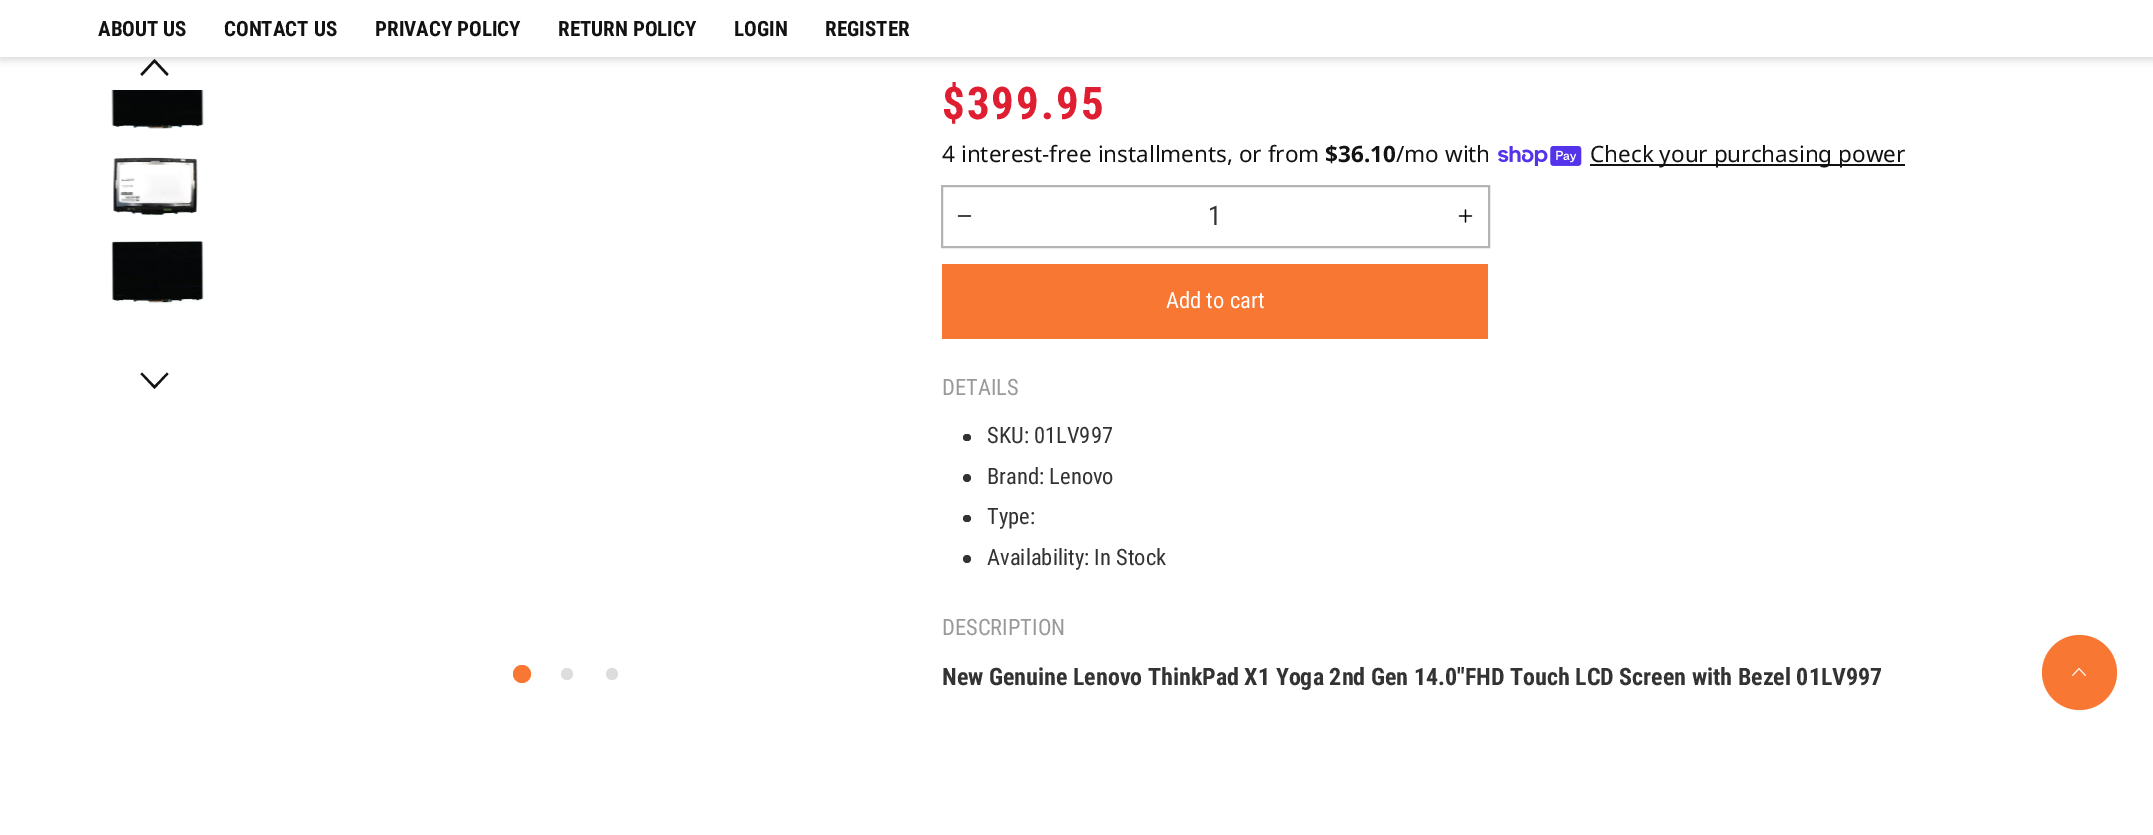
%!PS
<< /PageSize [2153 835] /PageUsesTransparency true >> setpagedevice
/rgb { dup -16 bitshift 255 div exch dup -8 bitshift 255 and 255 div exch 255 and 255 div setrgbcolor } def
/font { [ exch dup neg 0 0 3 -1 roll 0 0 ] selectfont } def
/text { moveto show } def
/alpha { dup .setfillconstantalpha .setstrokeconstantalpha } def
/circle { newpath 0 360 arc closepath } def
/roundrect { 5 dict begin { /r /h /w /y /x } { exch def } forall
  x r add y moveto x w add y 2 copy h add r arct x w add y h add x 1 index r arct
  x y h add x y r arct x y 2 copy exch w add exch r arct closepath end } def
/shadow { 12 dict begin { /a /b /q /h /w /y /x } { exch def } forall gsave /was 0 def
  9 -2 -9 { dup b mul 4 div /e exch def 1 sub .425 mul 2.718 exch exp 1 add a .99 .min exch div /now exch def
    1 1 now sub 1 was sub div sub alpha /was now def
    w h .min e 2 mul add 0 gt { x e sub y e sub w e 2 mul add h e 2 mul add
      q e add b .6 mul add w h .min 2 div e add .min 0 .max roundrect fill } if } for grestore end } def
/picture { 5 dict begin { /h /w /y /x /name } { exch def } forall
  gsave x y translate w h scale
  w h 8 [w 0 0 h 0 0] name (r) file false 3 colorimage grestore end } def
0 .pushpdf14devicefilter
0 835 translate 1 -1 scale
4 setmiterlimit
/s1 { /RobotoCondensed-Bold 21 font 16#121212 rgb } def
/s2 { /NotoSans-Regular 22.5 font 16#121212 rgb } def
/s3 { /NotoSans-Bold 22.5 font 16#121212 rgb } def
/s4 { /RobotoCondensed-Regular 27 font 16#333333 rgb } def
/s5 { /RobotoCondensed-Regular 22.5 font 16#FFFFFF rgb } def
/s6 { /RobotoCondensed-Regular 22.5 font 16#999999 rgb } def
/s7 { /RobotoCondensed-Regular 22.5 font 16#333333 rgb } def
/s8 { /RobotoCondensed-Bold 24 font 16#333333 rgb } def
16#FFFFFF rgb
0 0 2153 835 rectfill
16#121212 rgb
167 76 moveto 168.5 74 lineto 154.5 59 lineto 140.5 74 lineto 142 76 lineto 154.5 62.5 lineto closepath fill
16#000000 rgb
0 3 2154 57 0 4 0.15 shadow
16#FFFFFF rgb
0 0 2153 57 rectfill
s1
(ABOUT US) 98 36 text
(CONTACT US) 224 36 text
(PRIVACY POLICY) 375 36 text
(RETURN POLICY) 558 36 text
(LOGIN) 734 36 text
(REGISTER) 825 36 text
(pic1.raw) 111 90 93 39 picture
(pic2.raw) 113 157 85 59 picture
(pic3.raw) 111 240 93 64 picture
167 372.5 moveto 168.5 374 lineto 154.5 389 lineto 140.5 374 lineto 142 372.5 lineto 154.5 385.5 lineto closepath fill
16#F87733 rgb
522 674 9 circle fill
16#DDDDDD rgb
567 674 6 circle fill
612 674 6 circle fill
/RobotoCondensed-Bold 45 font
16#DF1E31 rgb
942 119 moveto 2 0 ($399.95) ashow
s2
(4 interest-free installments, or from) 942 162 text
s3
($36.10) 1325 162 text
s2
(/mo with) 1396 162 text
(pic4.raw) 1498 146 84 21 picture
1590 164 315 2 rectfill
(Check your purchasing power) 1590 162 text
16#B3B3B3 rgb
2 setlinewidth
942 186 547 61 rectstroke
(pic5.raw) 957 215 15 2 picture
s4
(1) 1208 225 text
(pic6.raw) 1458 209 15 14 picture
16#F87733 rgb
942 264 546 75 rectfill
s5
(Add to cart) 1166 308 text
s6
(DETAILS) 942 395 text
16#333333 rgb
963 434 8 7 3.5 roundrect fill
(SKU: 01LV997) 987 443 text
967 478 4 circle fill
(Brand: Lenovo) 987 484 text
963 515 8 7 3.5 roundrect fill
(Type:) 987 524 text
967 559 4 circle fill
(Availability: In Stock) 987 565 text
s6
(DESCRIPTION) 942 635 text
s8
(New Genuine Lenovo ThinkPad X1 Yoga 2nd Gen 14.0"FHD Touch LCD Screen with Bezel 01LV997) 942 685 text
16#F87733 rgb
2079.5 672.5 37.5 circle fill
(pic7.raw) 2072 667 14 9 picture
.poppdf14devicefilter showpage
